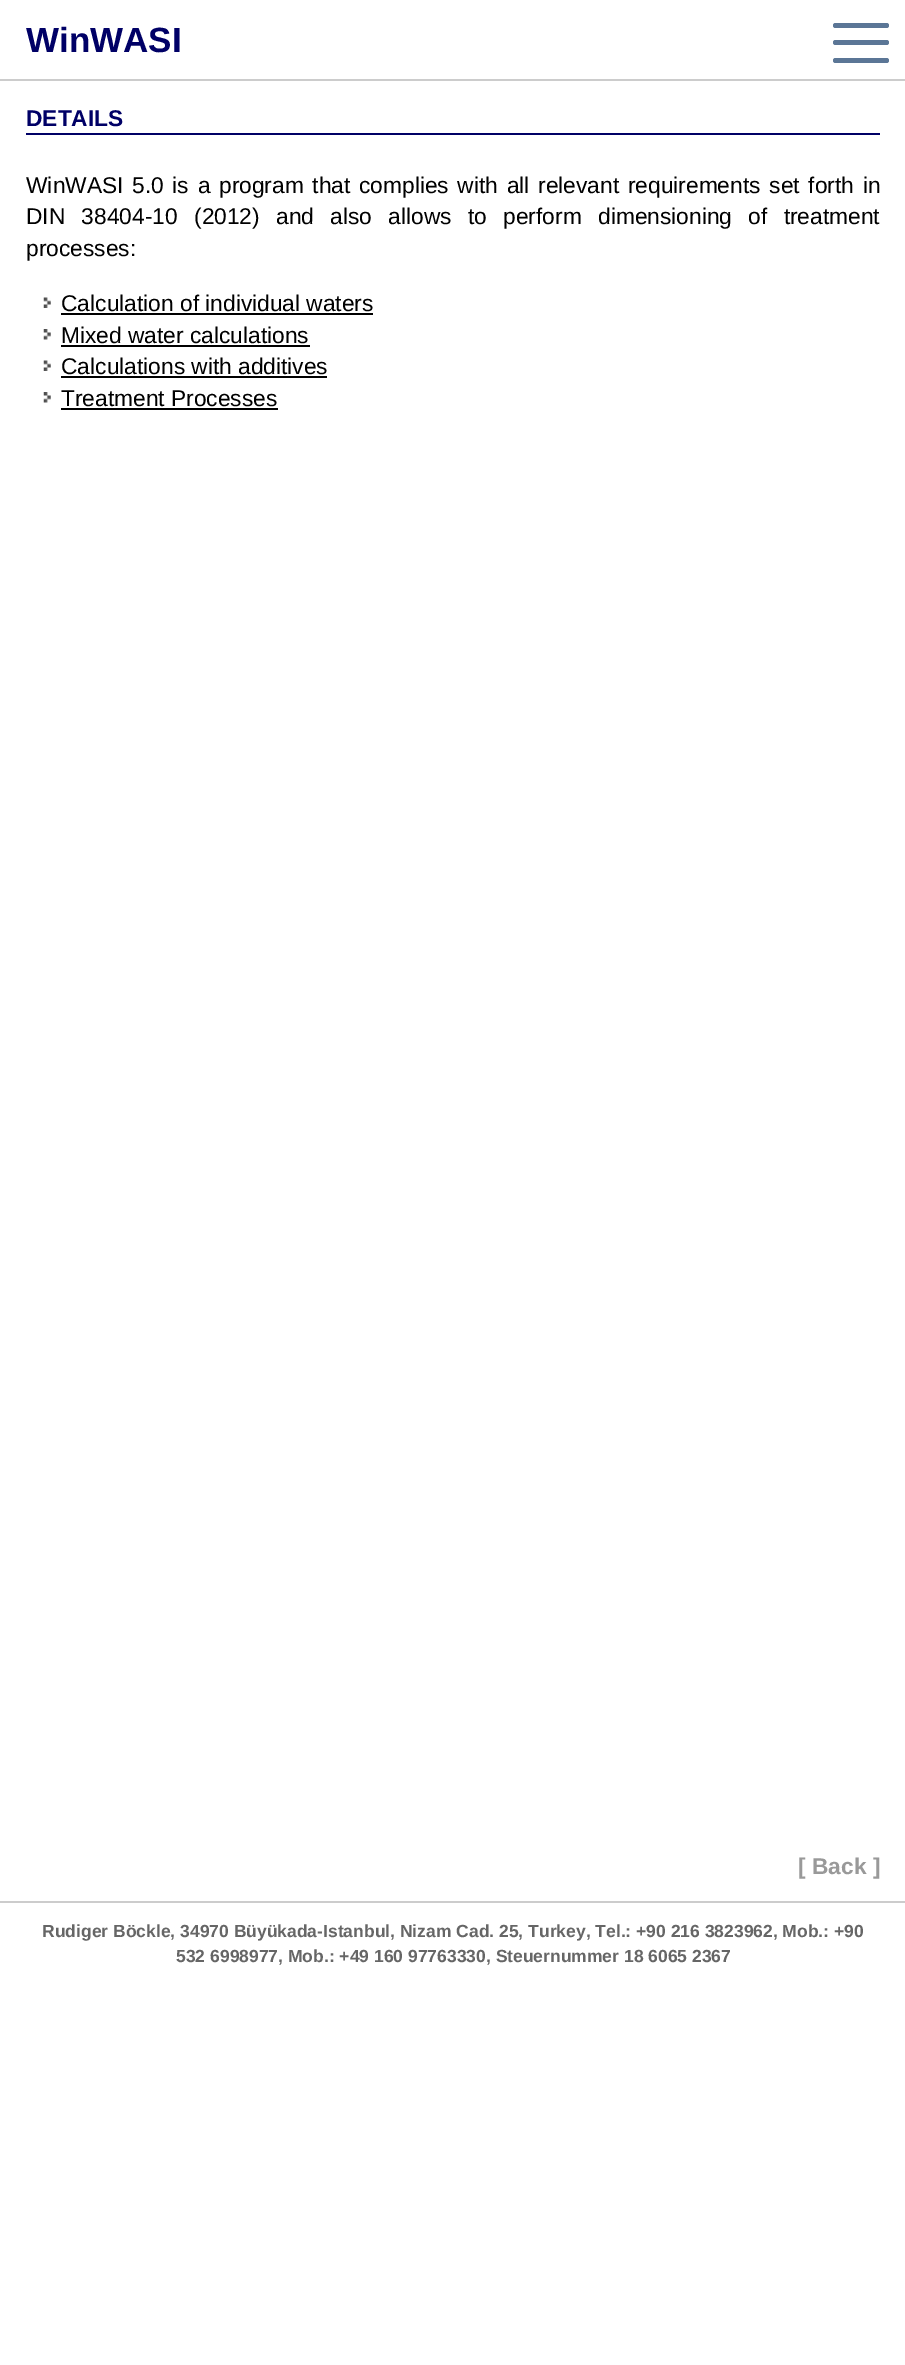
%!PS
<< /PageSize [905 2365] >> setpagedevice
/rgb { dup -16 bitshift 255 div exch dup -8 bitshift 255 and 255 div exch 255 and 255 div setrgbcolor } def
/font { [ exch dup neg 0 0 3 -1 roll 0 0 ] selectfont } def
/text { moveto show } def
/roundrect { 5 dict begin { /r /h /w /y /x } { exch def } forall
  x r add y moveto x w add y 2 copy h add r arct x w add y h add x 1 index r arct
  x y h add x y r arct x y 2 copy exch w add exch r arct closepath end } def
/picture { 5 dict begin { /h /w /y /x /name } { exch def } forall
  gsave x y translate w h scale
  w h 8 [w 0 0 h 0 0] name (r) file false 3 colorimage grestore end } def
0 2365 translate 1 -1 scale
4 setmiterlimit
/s1 { /LiberationSans-Bold 35 font 16#000066 rgb } def
/s2 { /LiberationSans-Bold 22.75 font 16#000066 rgb } def
/s3 { /LiberationSans-Regular 22.75 font 16#000000 rgb } def
/s4 { /LiberationSans-Bold 22.75 font 16#999999 rgb } def
/s5 { /LiberationSans-Bold 17.5 font 16#666666 rgb } def
16#FFFFFF rgb
0 0 905 2365 rectfill
16#CCCCCC rgb
0 79 905 2 rectfill
s1
(WinWASI) 26 52 text
16#5B7696 rgb
833 40 56 5 2.5 roundrect fill
833 23 56 5 2.5 roundrect fill
833 58 56 5 2.5 roundrect fill
16#000066 rgb
26 133 854 2 rectfill
s2
(DETAILS) 26 126 text
/LiberationSans-Regular 22.75 font
16#000000 rgb
26 193 moveto 2.4 0 32 (WinWASI 5.0 is a program that complies with all relevant requirements set forth in) widthshow
26 224 moveto 10 0 32 (DIN 38404-10 \(2012\) and also allows to perform dimensioning of treatment) widthshow
(processes:) 26 256 text
(pic1.raw) 43 297 8 11 picture
(Calculation of individual waters) 61 311 text
61 313 312 2 rectfill
(pic2.raw) 43 329 8 11 picture
(Mixed water calculations) 61 343 text
61 345 249 2 rectfill
(pic1.raw) 43 360 8 11 picture
(Calculations with additives) 61 374 text
61 376 266 2 rectfill
(pic2.raw) 43 392 8 11 picture
(Treatment Processes) 61 406 text
61 408 217 2 rectfill
s4
([ Back ]) 798 1874 text
16#CCCCCC rgb
0 1901 905 2 rectfill
s5
(Rudiger Böckle, 34970 Büyükada-Istanbul, Nizam Cad. 25, Turkey, Tel.: +90 216 3823962, Mob.: +90) 42 1937 text
(532 6998977, Mob.: +49 160 97763330, Steuernummer 18 6065 2367) 176 1962 text
showpage
